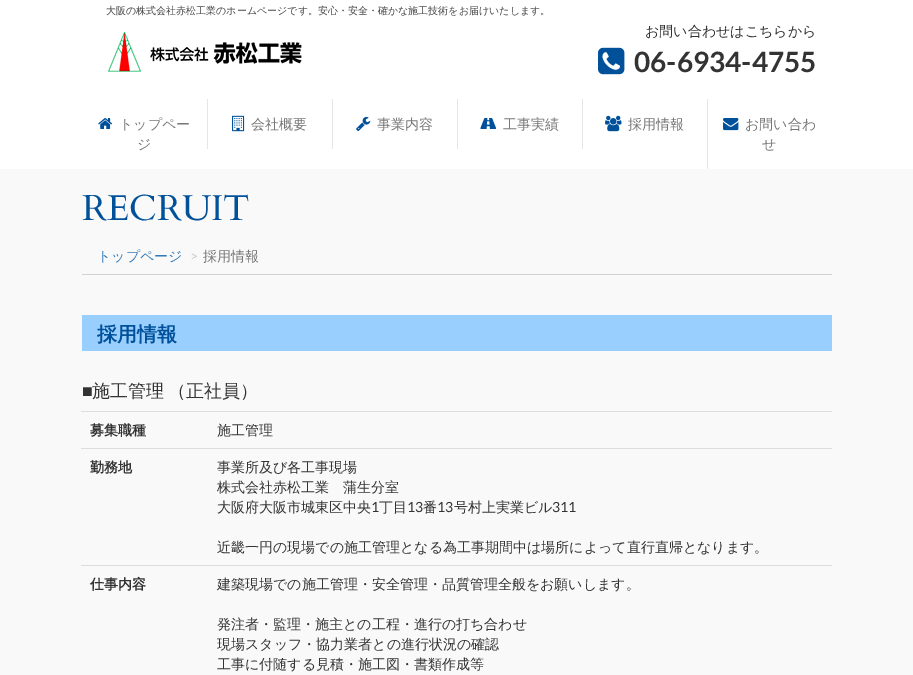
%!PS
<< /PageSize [913 675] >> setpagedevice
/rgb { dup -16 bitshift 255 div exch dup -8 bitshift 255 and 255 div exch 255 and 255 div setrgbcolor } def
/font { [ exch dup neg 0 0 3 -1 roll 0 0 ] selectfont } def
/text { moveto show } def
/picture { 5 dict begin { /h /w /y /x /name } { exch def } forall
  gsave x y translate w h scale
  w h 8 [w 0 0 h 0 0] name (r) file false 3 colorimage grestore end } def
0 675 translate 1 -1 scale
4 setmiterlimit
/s1 { /WenQuanYiZenHei-Medium 10 font 16#444444 rgb } def
/s2 { /WenQuanYiZenHei-Medium 14 font 16#333333 rgb } def
/s3 { /Lato-Bold 28 font 16#333333 rgb } def
/s4 { /WenQuanYiZenHei-Medium 14 font 16#777777 rgb } def
/s5 { /Cardo-Regular 36 font 16#00519A rgb } def
/s6 { /WenQuanYiZenHei-Medium 14 font 16#337AB7 rgb } def
/s7 { /Lato-Regular 14 font 16#CCCCCC rgb } def
/s8 { /WenQuanYiZenHei-Bold 20 font 16#00519A rgb } def
/s9 { /LiberationSans-Regular 18 font 16#333333 rgb } def
/s10 { /WenQuanYiZenHei-Medium 18 font 16#333333 rgb } def
/s11 { /WenQuanYiZenHei-Bold 14 font 16#333333 rgb } def
/s12 { /Lato-Regular 14 font 16#333333 rgb } def
16#FFFFFF rgb
0 0 913 675 rectfill
s1
(大阪の株式会社赤松工業のホームページです。安心・安全・確かな施工技術をお届けいたします。) 106 14 text
(pic1.raw) 108 31 194 41 picture
s2
(お問い合わせはこちらから) 645 36 text
(pic2.raw) 598 47 27 28 picture
s3
(06-6934-4755) 634 72 text
(pic3.raw) 98 118 14 11 picture
s4
(トップペー) 119 129 text
(ジ) 137 149 text
16#E6E6E6 rgb
207 99 1 50 rectfill
(pic4.raw) 232 115 13 17 picture
s4
(会社概要) 251 129 text
16#E6E6E6 rgb
332 99 1 50 rectfill
(pic5.raw) 356 116 15 15 picture
s4
(事業内容) 377 129 text
16#E6E6E6 rgb
457 99 1 50 rectfill
(pic6.raw) 480 118 17 11 picture
s4
(工事実績) 503 129 text
16#E6E6E6 rgb
582 99 1 50 rectfill
(pic7.raw) 605 115 17 17 picture
s4
(採用情報) 628 129 text
16#E6E6E6 rgb
707 99 1 70 rectfill
(pic8.raw) 723 118 16 13 picture
s4
(お問い合わ) 745 129 text
(せ) 762 149 text
16#F9F9F9 rgb
0 169 913 506 rectfill
s5
(RECRUIT) 82 220 text
16#D2D2D2 rgb
82 274 750 1 rectfill
s6
(トップページ) 97 261 text
s7
(>) 190 261 text
s4
(採用情報) 203 261 text
16#99CFFF rgb
82 315 750 36 rectfill
s8
(採用情報) 97 341 text
s9
(■) 82 397 text
s10
(施工管理) 92 397 text
(（正社員）) 168 397 text
s11
(募集職種) 90 435 text
16#DDDDDD rgb
81 411 751 1 rectfill
s2
(施工管理) 217 435 text
s11
(勤務地) 90 472 text
16#DDDDDD rgb
81 448 751 1 rectfill
s2
(事業所及び各工事現場) 217 472 text
(株式会社赤松工業　蒲生分室) 217 492 text
(大阪府大阪市城東区中央) 217 512 text
s12
(1) 371 512 text
s2
(丁目) 379 512 text
s12
(13) 407 512 text
s2
(番) 423 512 text
s12
(13) 437 512 text
s2
(号村上実業ビル) 454 512 text
s12
(311) 552 512 text
s2
(近畿一円の現場での施工管理となる為工事期間中は場所によって直行直帰となります。) 217 552 text
s11
(仕事内容) 90 589 text
16#DDDDDD rgb
81 565 751 1 rectfill
s2
(建築現場での施工管理・安全管理・品質管理全般をお願いします。) 217 589 text
(発注者・監理・施主との工程・進行の打ち合わせ) 217 629 text
(現場スタッフ・協力業者との進行状況の確認) 217 649 text
(工事に付随する見積・施工図・書類作成等) 217 669 text
showpage
